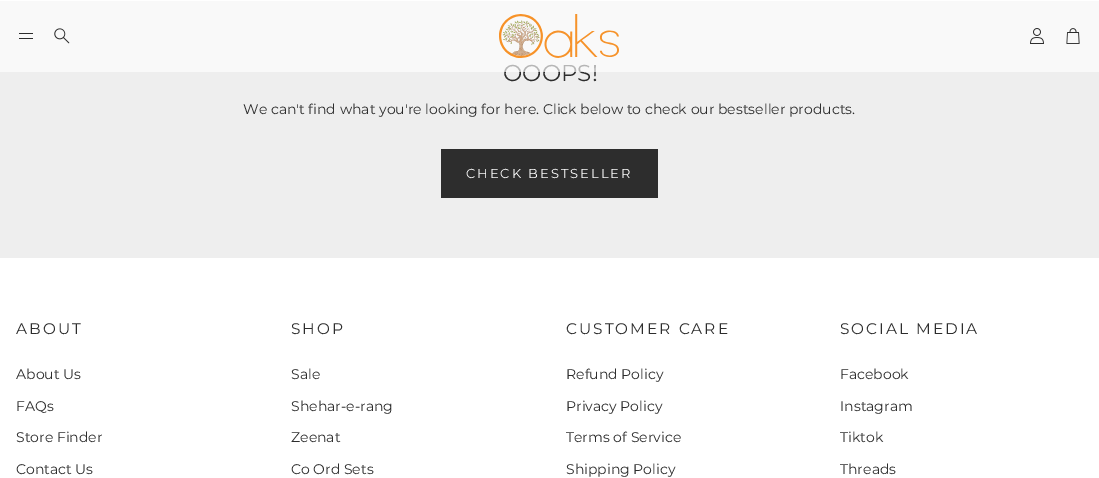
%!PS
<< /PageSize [1099 478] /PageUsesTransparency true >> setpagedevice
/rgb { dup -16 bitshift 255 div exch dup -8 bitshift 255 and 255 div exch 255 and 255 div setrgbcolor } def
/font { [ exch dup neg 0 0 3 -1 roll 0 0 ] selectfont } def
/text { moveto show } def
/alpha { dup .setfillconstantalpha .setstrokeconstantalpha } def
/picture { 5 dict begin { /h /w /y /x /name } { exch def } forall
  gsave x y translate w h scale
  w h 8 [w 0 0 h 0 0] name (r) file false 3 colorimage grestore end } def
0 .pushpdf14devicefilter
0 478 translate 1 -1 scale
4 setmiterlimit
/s1 { /Montserrat-Regular 23 font 16#2D2D2D rgb } def
/s2 { /Montserrat-Regular 14 font 16#2D2D2D rgb } def
16#FFFFFF rgb
0 0 1099 478 rectfill
16#EEEEEE rgb
0 1 1099 257 rectfill
s1
(OOOPS!) 503 81 text
0.65 alpha
16#FFFFFF rgb
0 1 1099 71 rectfill
1 alpha
16#2D2D2D rgb
19 33 14 1 rectfill
19 38 14 1 rectfill
(pic1.raw) 54 28 16 16 picture
(pic2.raw) 499 14 120 44 picture
(pic3.raw) 1030 28 14 16 picture
(pic4.raw) 1066 28 14 16 picture
s2
(We can't find what you're looking for here. Click below to check our bestseller products.) 243 114 text
441 149 217 49 rectfill
/Montserrat-Regular 13 font
16#FFFFFF rgb
466 178 moveto 2 0 (CHECK BESTSELLER) ashow
/Montserrat-Regular 15.4 font
16#2D2D2D rgb
16 334 moveto 2 0 (ABOUT) ashow
s2
(About Us) 16 379 text
(FAQs) 16 411 text
(Store Finder) 16 442 text
(Contact Us) 16 474 text
/Montserrat-Regular 15.4 font
291 334 moveto 2 0 (SHOP) ashow
s2
(Sale) 291 379 text
(Shehar-e-rang) 291 411 text
(Zeenat) 291 442 text
(Co Ord Sets) 291 474 text
/Montserrat-Regular 15.4 font
566 334 moveto 2 0 (CUSTOMER CARE) ashow
s2
(Refund Policy) 566 379 text
(Privacy Policy) 566 411 text
(Terms of Service) 566 442 text
(Shipping Policy) 566 474 text
/Montserrat-Regular 15.4 font
840 334 moveto 2 0 (SOCIAL MEDIA) ashow
s2
(Facebook) 840 379 text
(Instagram) 840 411 text
(Tiktok) 840 442 text
(Threads) 840 474 text
.poppdf14devicefilter showpage
